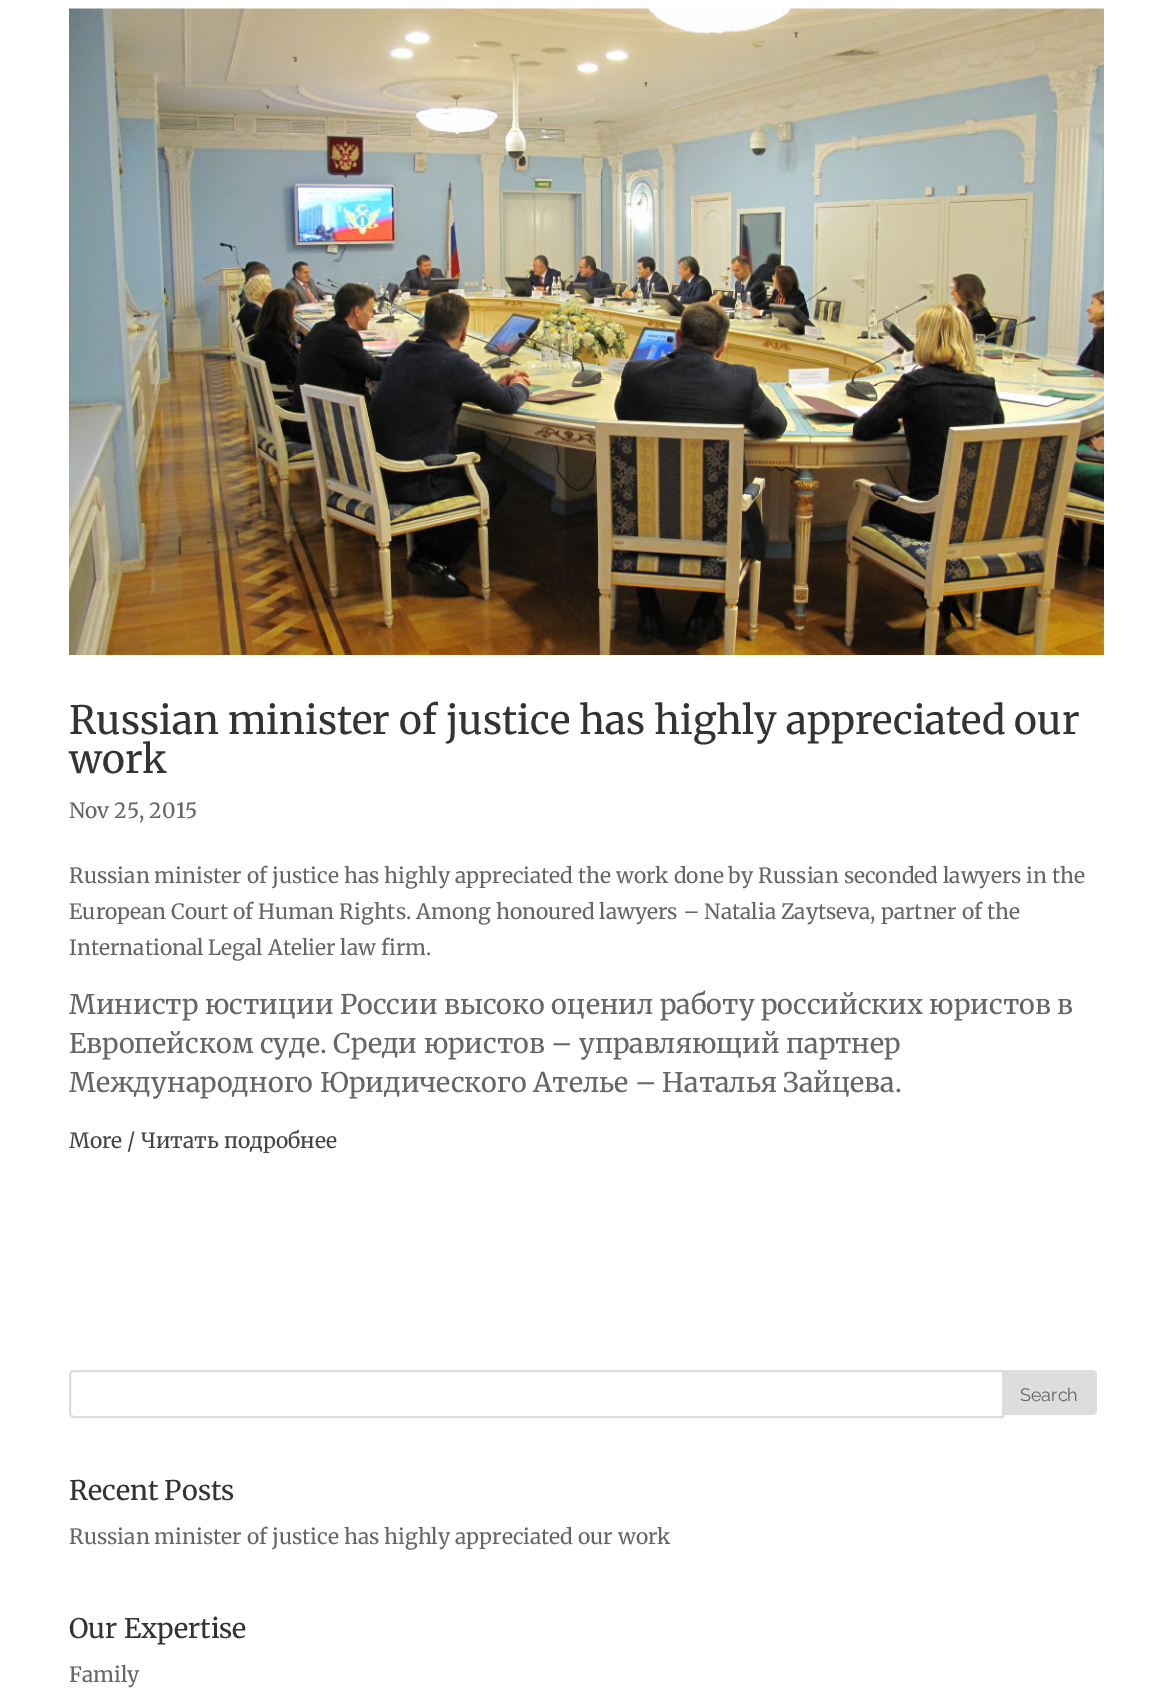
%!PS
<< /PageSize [1173 1703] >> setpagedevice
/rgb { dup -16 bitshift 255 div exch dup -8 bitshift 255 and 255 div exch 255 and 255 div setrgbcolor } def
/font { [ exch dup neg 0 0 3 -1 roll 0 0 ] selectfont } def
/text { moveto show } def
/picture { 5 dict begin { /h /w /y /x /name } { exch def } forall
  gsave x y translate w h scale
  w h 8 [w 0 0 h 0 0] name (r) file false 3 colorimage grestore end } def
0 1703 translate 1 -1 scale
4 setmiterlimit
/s1 { /Merriweather-Regular 39 font 16#333333 rgb } def
/s2 { /Merriweather-Regular 21 font 16#666666 rgb } def
/s3 { /Merriweather-Regular 27 font 16#666666 rgb } def
/s4 { /Merriweather-Regular 21 font 16#444444 rgb } def
/s5 { /Raleway-Regular 18 font 16#666666 rgb } def
/s6 { /Merriweather-Regular 27 font 16#333333 rgb } def
16#FFFFFF rgb
0 0 1173 1703 rectfill
(pic1.raw) 69 8 1035 647 picture
s1
(Russian minister of justice has highly appreciated our) 69 734 text
(work) 69 773 text
s2
(Nov 25, 2015) 69 818 text
(Russian minister of justice has highly appreciated the work done by Russian seconded lawyers in the) 69 883 text
(European Court of Human Rights. Among honoured lawyers – Natalia Zaytseva, partner of the) 69 919 text
(International Legal Atelier law firm.) 69 955 text
s3
(Министр юстиции России высоко оценил работу российских юристов в) 69 1014 text
(Европейском суде. Среди юристов – управляющий партнер) 69 1053 text
(Международного Юридического Ателье – Наталья Зайцева.) 69 1092 text
s4
(More / Читать подробнее) 69 1148 text
16#DDDDDD rgb
2 setlinewidth
74 1371 moveto 1003 1371 lineto 1003 1417 lineto 74 1417 lineto 72 1417 70 1415 70 1413 curveto 70 1375 lineto 70 1373 72 1371 74 1371 curveto closepath stroke
1002 1370 moveto 1092 1370 lineto 1095 1370 1097 1372 1097 1375 curveto 1097 1410 lineto 1097 1413 1095 1415 1092 1415 curveto 1002 1415 lineto closepath fill
s5
(Search) 1020 1401 text
s6
(Recent Posts) 69 1500 text
s2
(Russian minister of justice has highly appreciated our work) 69 1544 text
s6
(Our Expertise) 69 1638 text
s2
(Family) 69 1682 text
showpage
